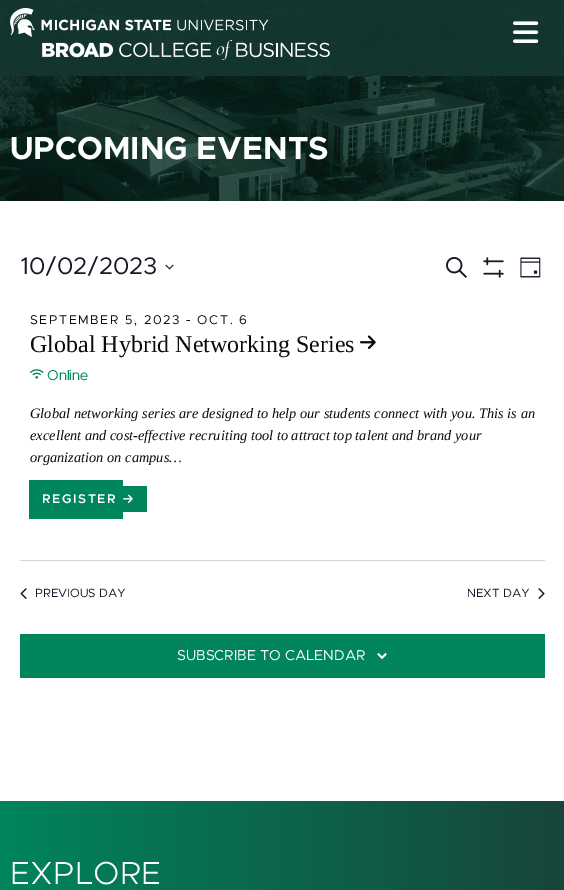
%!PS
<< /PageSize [564 890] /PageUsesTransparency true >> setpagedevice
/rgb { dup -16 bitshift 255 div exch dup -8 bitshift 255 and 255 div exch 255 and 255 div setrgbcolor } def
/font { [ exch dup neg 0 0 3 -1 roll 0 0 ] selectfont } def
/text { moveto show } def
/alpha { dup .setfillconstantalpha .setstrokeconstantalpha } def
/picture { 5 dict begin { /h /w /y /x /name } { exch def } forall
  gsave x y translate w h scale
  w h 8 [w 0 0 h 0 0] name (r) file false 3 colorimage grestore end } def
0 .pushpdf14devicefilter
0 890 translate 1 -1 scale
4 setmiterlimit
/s1 { /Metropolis-Bold 32 font 16#FEFEFE rgb } def
/s2 { /Metropolis-Regular 24 font 16#141827 rgb } def
/s3 { /LiberationSerif-Regular 24 font 16#0A0A0A rgb } def
/s4 { /Metropolis-Regular 14.4 font 16#00855D rgb } def
/s5 { /LiberationSerif-Italic 14.4 font 16#0A0A0A rgb } def
/s6 { /Metropolis-Regular 12 font 16#141827 rgb } def
/s7 { /Metropolis-Regular 14.4 font 16#FEFEFE rgb } def
/s8 { /Metropolis-Light 32 font 16#FEFEFE rgb } def
16#FFFFFF rgb
0 0 564 890 rectfill
(pic1.raw) 0 0 564 201 picture
0.92 alpha
16#13362E rgb
0 0 564 76 rectfill
1 alpha
(pic2.raw) 10 8 259 29 picture
(pic3.raw) 513 21 26 22 picture
(pic4.raw) 42 40 288 20 picture
s1
(UPCOMING EVENTS) 10 159 text
s2
(10/02/2023) 20 274 text
(pic5.raw) 165 264 9 6 picture
(pic6.raw) 446 257 21 21 picture
(pic7.raw) 483 257 21 21 picture
(pic8.raw) 520 257 21 21 picture
/Metropolis-Regular 12.75 font
16#0A0A0A rgb
30 324 moveto 1.6 0 (SEPTEMBER 5, 2023 - OCT. 6) ashow
s3
(Global Hybrid Networking Series) 30 352 text
(pic9.raw) 360 335 16 14 picture
(pic10.raw) 30 369 14 10 picture
s4
(Online) 47 380 text
s5
(Global networking series are designed to help our students connect with you. This is an) 30 418 text
(excellent and cost-effective recruiting tool to attract top talent and brand your) 30 440 text
(organization on campus…) 30 462 text
16#00855D rgb
29 480 94 39 rectfill
123 486 24 26 rectfill
/Metropolis-SemiBold 12.75 font
16#FEFEFE rgb
42 503 moveto 1.6 0 (REGISTER) ashow
(pic11.raw) 123 494 10 9 picture
16#D5D5D5 rgb
20 560 525 1 rectfill
(pic12.raw) 20 588 7 11 picture
s6
(PREVIOUS DAY) 35 597 text
(NEXT DAY) 467 597 text
(pic13.raw) 538 588 7 11 picture
16#00855D rgb
20 634 525 44 rectfill
s7
(SUBSCRIBE TO CALENDAR) 177 660 text
(pic14.raw) 377 653 10 6 picture
gsave 0 801 moveto 564 801 lineto 564 890 lineto 0 890 lineto closepath clip newpath
<< /ShadingType 2 /ColorSpace /DeviceRGB /Coords [0 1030 564 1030] /Extend [true true] /Function << /FunctionType 2 /Domain [0 1] /C0 [0 0.522 0.365] /C1 [0.094 0.271 0.231] /N 1 >> >> shfill grestore
s8
(EXPLORE) 10 884 text
.poppdf14devicefilter showpage
